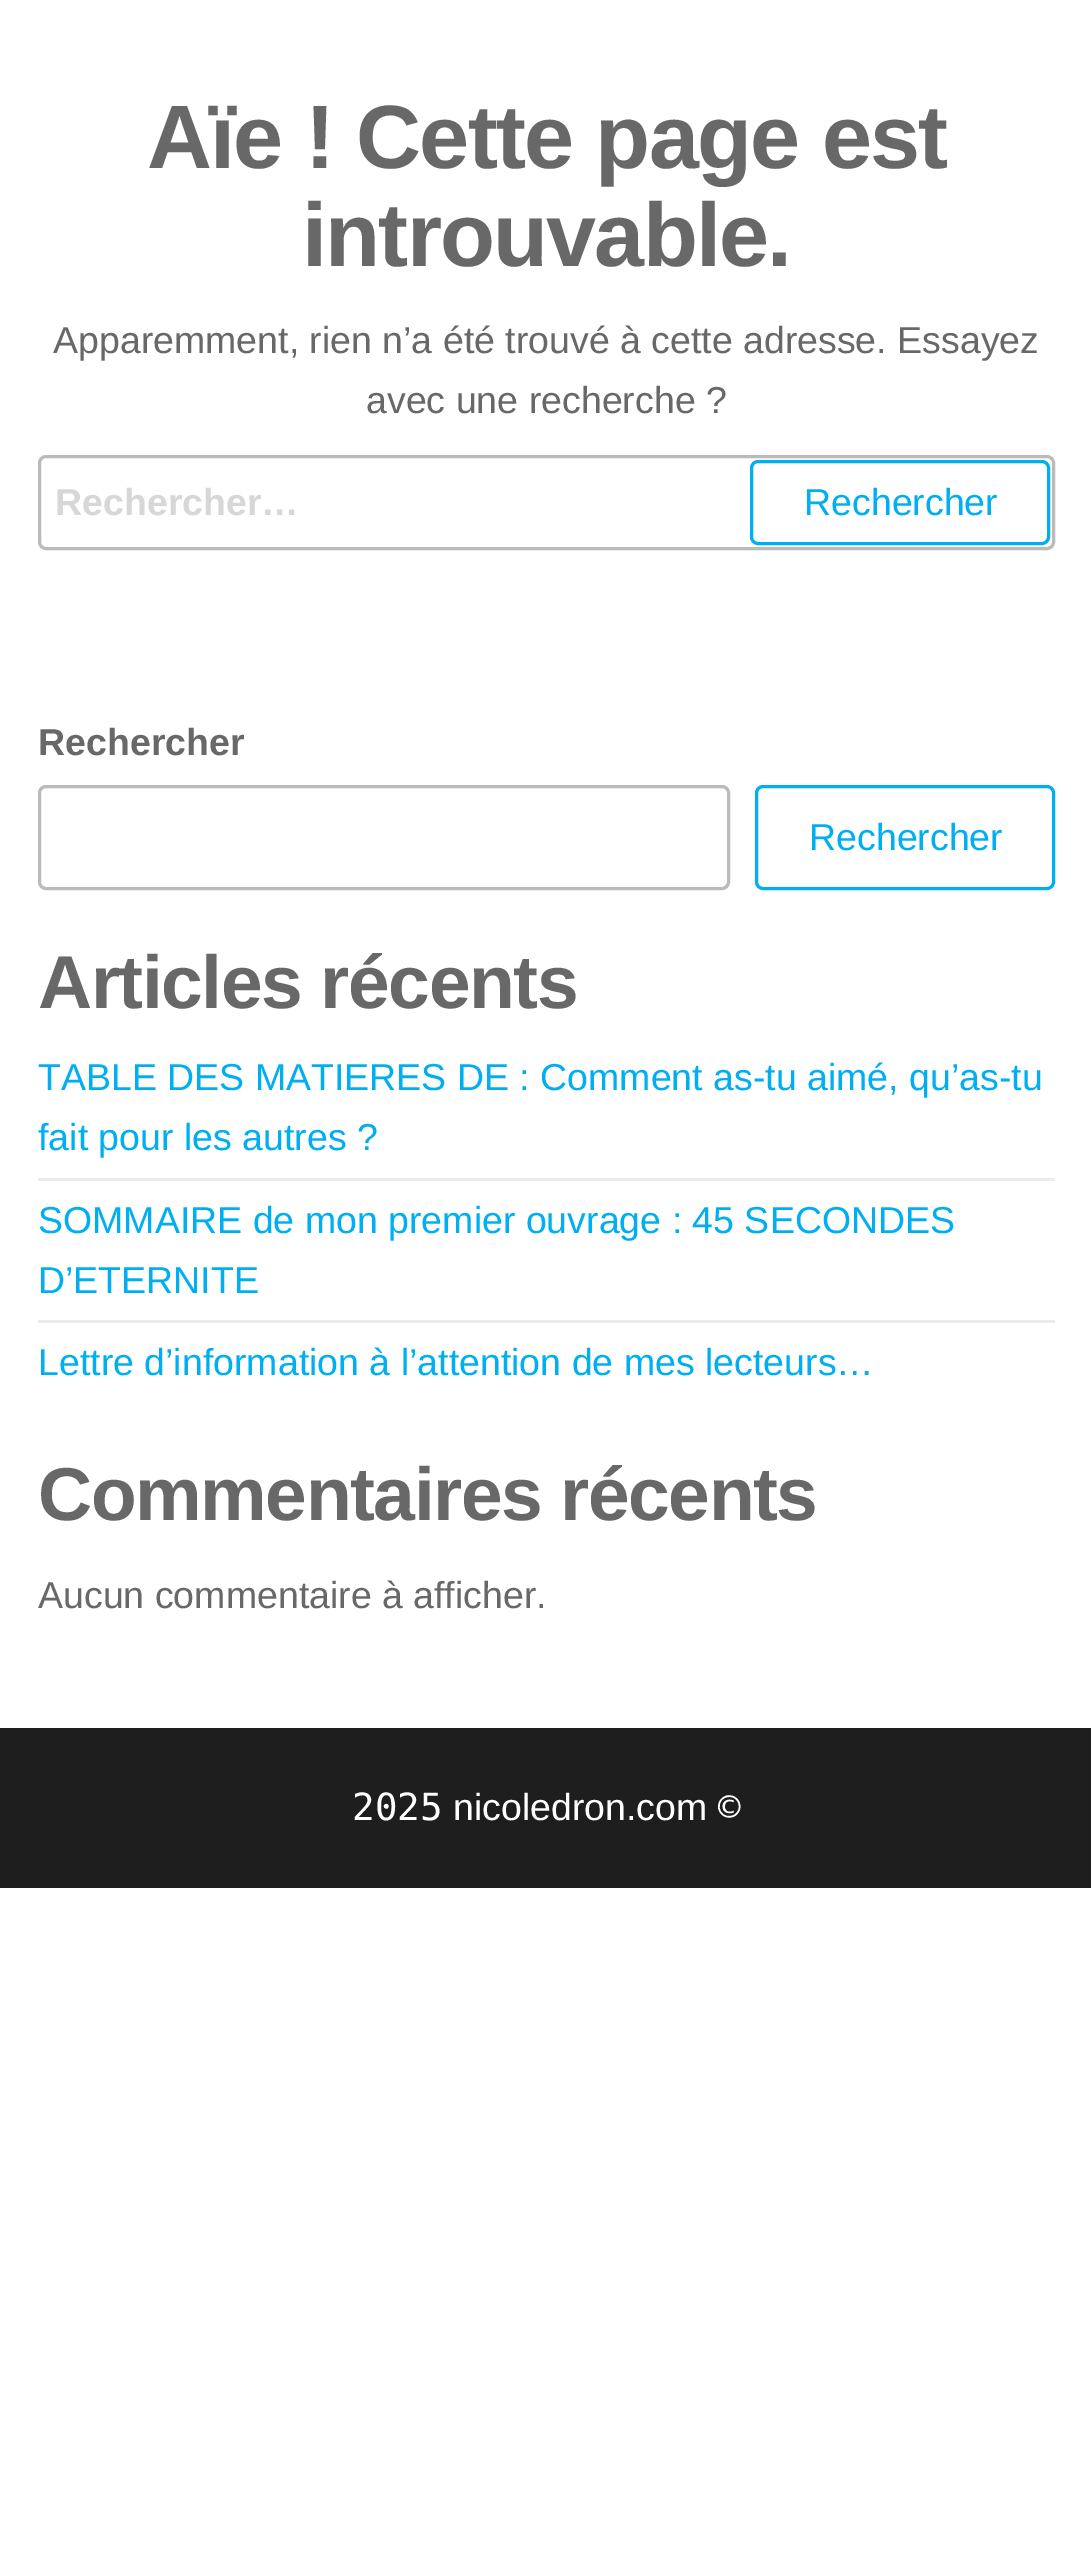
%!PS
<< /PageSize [1091 2562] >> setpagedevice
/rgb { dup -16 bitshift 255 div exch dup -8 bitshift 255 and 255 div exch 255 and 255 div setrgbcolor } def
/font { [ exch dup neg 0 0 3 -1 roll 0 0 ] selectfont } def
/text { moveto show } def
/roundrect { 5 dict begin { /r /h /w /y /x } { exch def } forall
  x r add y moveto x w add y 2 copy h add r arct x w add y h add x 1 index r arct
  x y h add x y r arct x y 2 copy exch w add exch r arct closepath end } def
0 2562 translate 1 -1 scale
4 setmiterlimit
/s1 { /LiberationSans-Regular 37.5 font 16#686868 rgb } def
/s2 { /LiberationSans-Bold 37.5 font 16#D7D7D7 rgb } def
/s3 { /LiberationSans-Regular 37.5 font 16#00AFF2 rgb } def
/s4 { /LiberationSans-Bold 37.5 font 16#686868 rgb } def
/s5 { /DejaVuSansMono-Regular 37.5 font 16#FFFFFF rgb } def
/s6 { /LiberationSans-Regular 37.5 font 16#FFFFFF rgb } def
16#FFFFFF rgb
0 0 1091 2562 rectfill
/LiberationSans-Bold 90 font
16#686868 rgb
147 168 moveto -1.8 0 (Aïe ! Cette page est) ashow
302 266 moveto -1.8 0 (introuvable.) ashow
s1
(Apparemment, rien n’a été trouvé à cette adresse. Essayez) 53 353 text
(avec une recherche ?) 366 413 text
16#BBBBBB rgb
3 setlinewidth
39.5 456.5 1014 92 6.5 roundrect stroke
s2
(Rechercher…) 55 515 text
16#00AFF2 rgb
751.5 461.5 297 82 6.5 roundrect stroke
s3
(Rechercher) 804 515 text
s4
(Rechercher) 38 755 text
16#BBBBBB rgb
39.5 786.5 689 102 6.5 roundrect stroke
16#00AFF2 rgb
756.5 786.5 297 102 6.5 roundrect stroke
s3
(Rechercher) 809 850 text
/LiberationSans-Bold 75 font
16#686868 rgb
38 1008 moveto -1.5 0 (Articles récents) ashow
16#EBEBEB rgb
38 1178 1017 3 rectfill
s3
(TABLE DES MATIERES DE : Comment as-tu aimé, qu’as-tu) 38 1090 text
(fait pour les autres ?) 38 1150 text
16#EBEBEB rgb
38 1320 1017 3 rectfill
s3
(SOMMAIRE de mon premier ouvrage : 45 SECONDES) 38 1233 text
(D’ETERNITE) 38 1293 text
(Lettre d’information à l’attention de mes lecteurs…) 38 1375 text
/LiberationSans-Bold 75 font
16#686868 rgb
38 1520 moveto -1.5 0 (Commentaires récents) ashow
s1
(Aucun commentaire à afficher.) 38 1608 text
16#1E1E1E rgb
0 1728 1091 160 rectfill
s5
(2025) 352 1820 text
s6
(nicoledron.com) 453 1820 text
s5
(©) 718 1820 text
showpage
